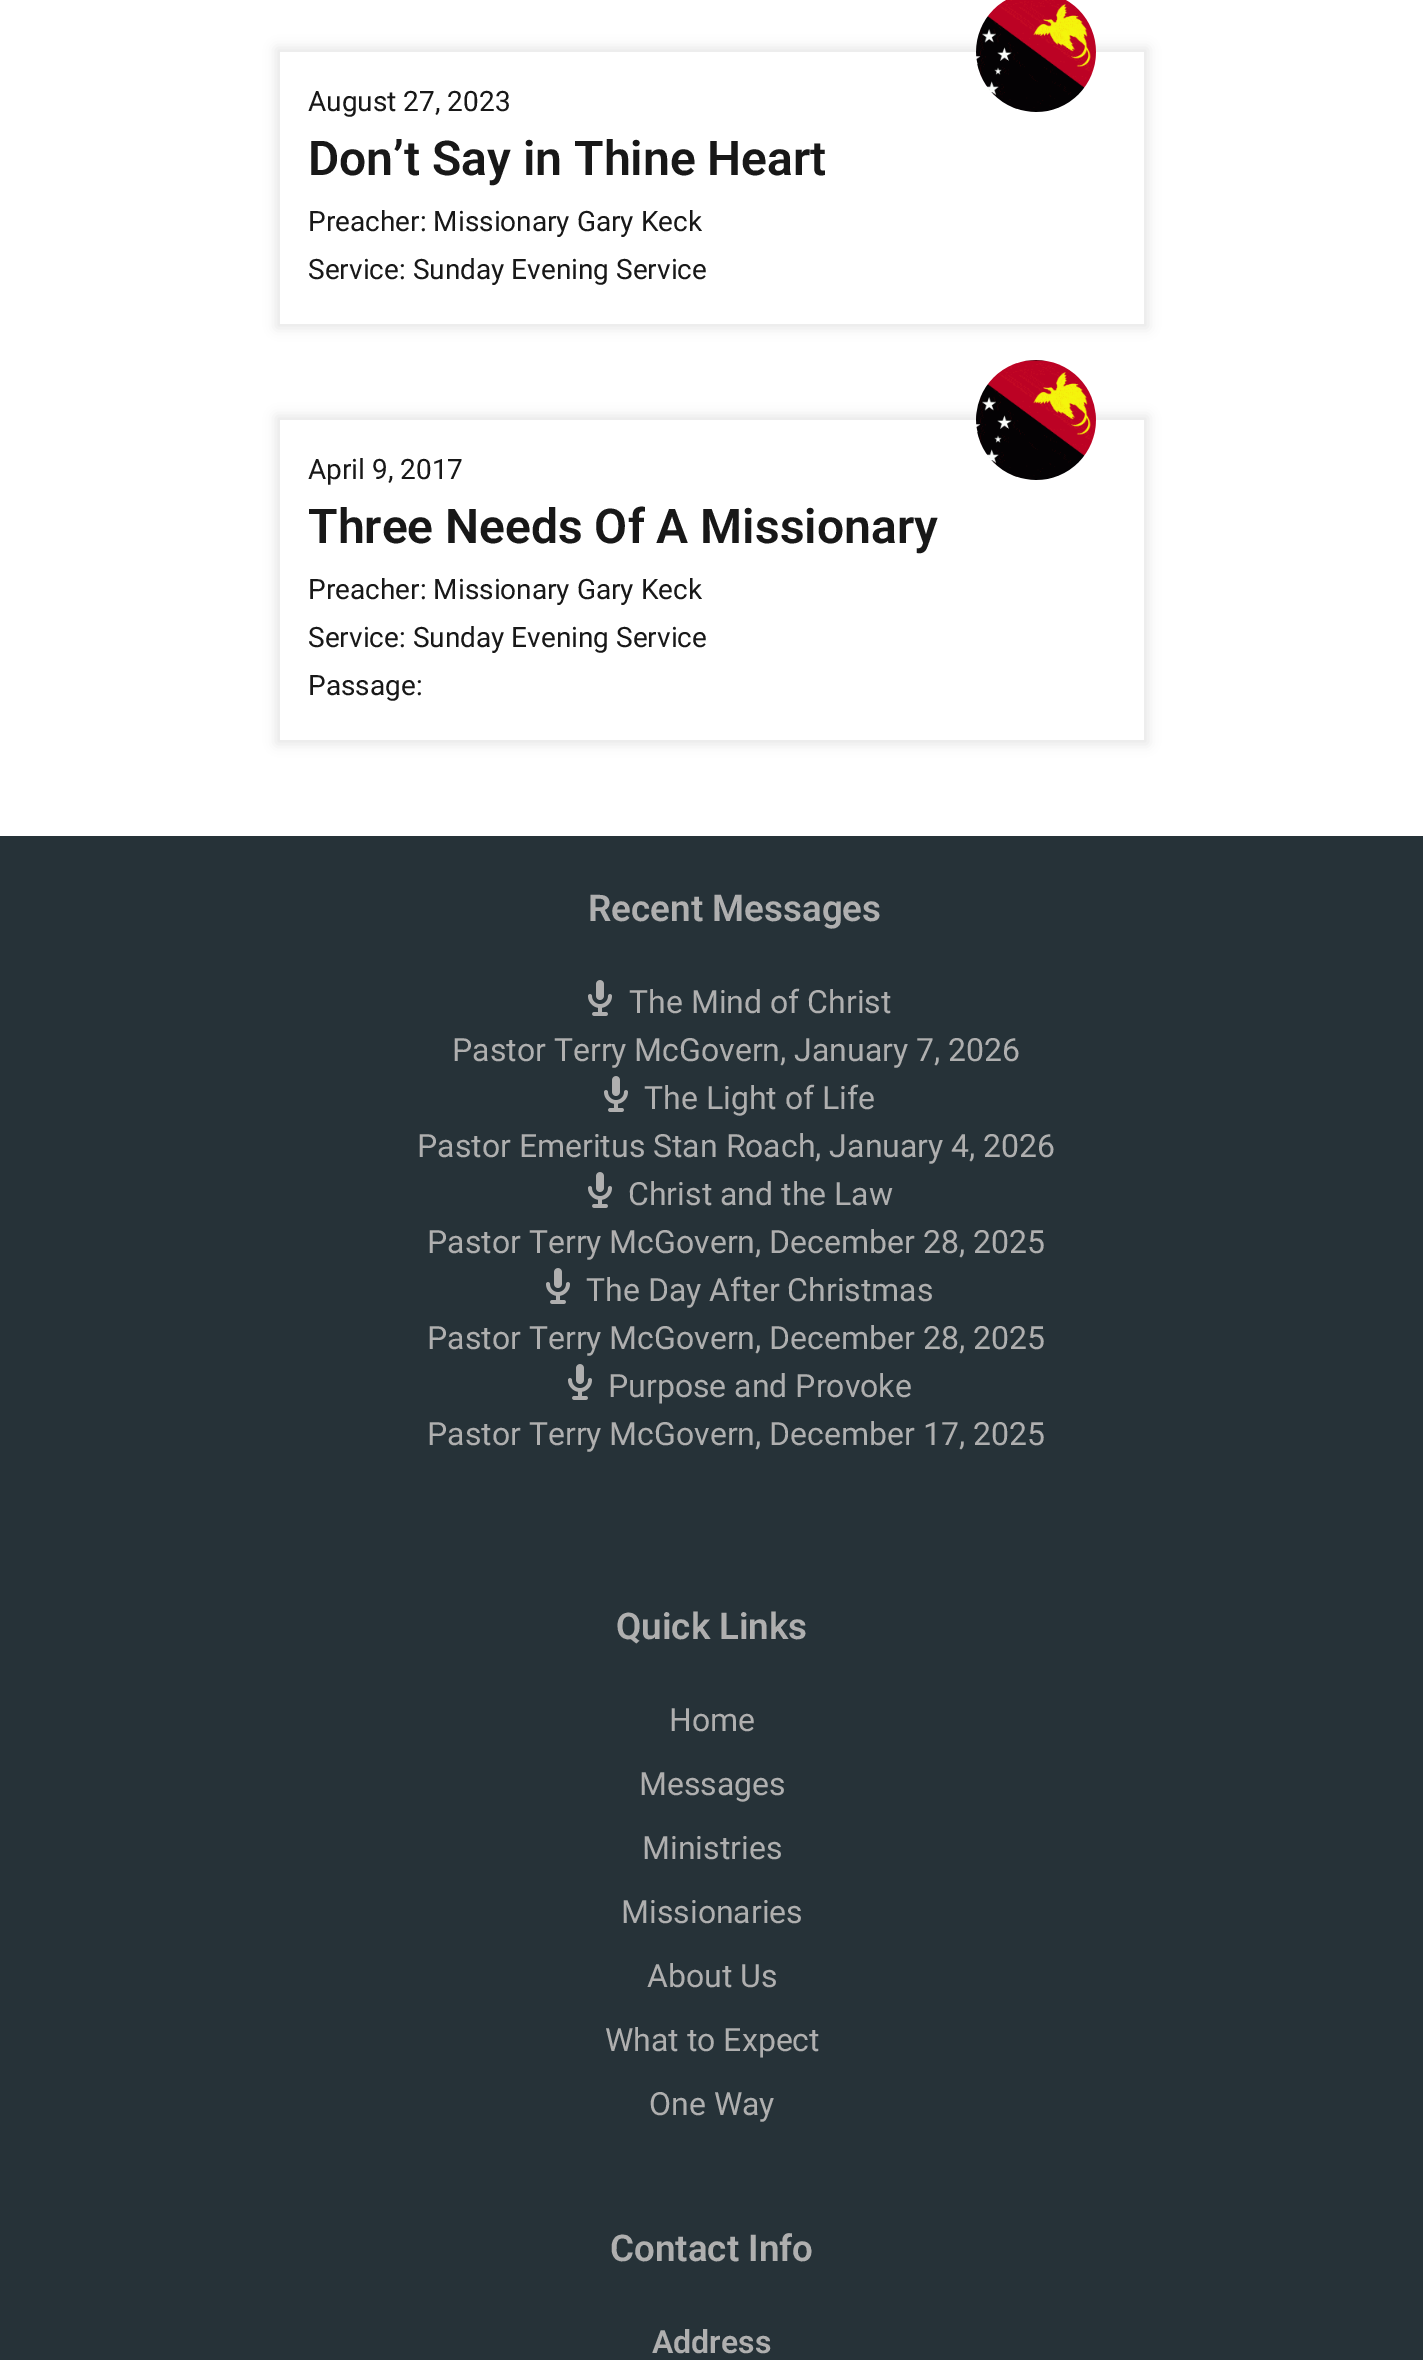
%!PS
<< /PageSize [1423 2360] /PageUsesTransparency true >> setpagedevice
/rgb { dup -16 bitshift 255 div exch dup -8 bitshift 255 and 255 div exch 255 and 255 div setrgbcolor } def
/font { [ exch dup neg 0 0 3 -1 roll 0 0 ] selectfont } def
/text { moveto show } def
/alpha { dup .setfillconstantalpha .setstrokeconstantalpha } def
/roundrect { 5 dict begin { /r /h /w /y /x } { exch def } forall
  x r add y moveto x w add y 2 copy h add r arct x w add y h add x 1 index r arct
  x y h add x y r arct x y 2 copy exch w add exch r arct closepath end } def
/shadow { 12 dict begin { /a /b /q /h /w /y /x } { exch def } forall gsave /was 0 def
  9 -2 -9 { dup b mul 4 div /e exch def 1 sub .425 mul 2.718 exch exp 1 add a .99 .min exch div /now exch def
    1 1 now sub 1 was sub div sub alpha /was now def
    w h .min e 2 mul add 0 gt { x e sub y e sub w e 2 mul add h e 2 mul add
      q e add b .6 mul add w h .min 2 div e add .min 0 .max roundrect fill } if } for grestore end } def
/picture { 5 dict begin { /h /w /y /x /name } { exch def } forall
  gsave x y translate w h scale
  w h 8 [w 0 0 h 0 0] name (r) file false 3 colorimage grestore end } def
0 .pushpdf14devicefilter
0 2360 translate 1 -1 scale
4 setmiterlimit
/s1 { /Roboto-Regular 28 font 16#181818 rgb } def
/s2 { /Roboto-SemiBold 48 font 16#181818 rgb } def
/s3 { /Roboto-SemiBold 36.75 font 16#AFAFAF rgb } def
/s4 { /Roboto-Regular 32 font 16#AFAFAF rgb } def
/s5 { /Roboto-SemiBold 32 font 16#AFAFAF rgb } def
16#FFFFFF rgb
0 0 1423 2360 rectfill
gsave
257 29 moveto 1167 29 lineto 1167 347 lineto 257 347 lineto closepath 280 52 moveto 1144 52 lineto 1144 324 lineto 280 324 lineto closepath eoclip newpath
16#000000 rgb
276 48 872 280 0 6 0.1 shadow
grestore
s1
(August 27, 2023) 308 111 text
(pic1.raw) 976 0 120 112 picture
s2
(Don’t Say in Thine Heart) 308 175 text
s1
(Preacher: Missionary Gary Keck) 308 231 text
(Service: Sunday Evening Service) 308 279 text
gsave
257 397 moveto 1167 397 lineto 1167 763 lineto 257 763 lineto closepath 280 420 moveto 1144 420 lineto 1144 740 lineto 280 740 lineto closepath eoclip newpath
16#000000 rgb
276 416 872 328 0 6 0.1 shadow
grestore
(April 9, 2017) 308 479 text
(pic2.raw) 976 360 120 120 picture
s2
(Three Needs Of A Missionary) 308 543 text
s1
(Preacher: Missionary Gary Keck) 308 599 text
(Service: Sunday Evening Service) 308 647 text
(Passage:) 308 695 text
16#263238 rgb
0 836 1423 1524 rectfill
s3
(Recent Messages) 588 921 text
(pic3.raw) 588 980 24 36 picture
s4
(The Mind of Christ) 629 1013 text
(Pastor Terry McGovern, January 7, 2026) 452 1061 text
(pic3.raw) 604 1076 24 36 picture
(The Light of Life) 644 1109 text
(Pastor Emeritus Stan Roach, January 4, 2026) 417 1157 text
(pic3.raw) 588 1172 24 36 picture
(Christ and the Law) 628 1205 text
(Pastor Terry McGovern, December 28, 2025) 427 1253 text
(pic3.raw) 546 1268 24 36 picture
(The Day After Christmas) 586 1301 text
(Pastor Terry McGovern, December 28, 2025) 427 1349 text
(pic3.raw) 568 1364 24 36 picture
(Purpose and Provoke) 608 1397 text
(Pastor Terry McGovern, December 17, 2025) 427 1445 text
s3
(Quick Links) 616 1639 text
s4
(Home) 669 1731 text
(Messages) 639 1795 text
(Ministries) 642 1859 text
(Missionaries) 621 1923 text
(About Us) 647 1987 text
(What to Expect) 605 2051 text
(One Way) 649 2115 text
s3
(Contact Info) 610 2261 text
s5
(Address) 652 2353 text
.poppdf14devicefilter showpage
